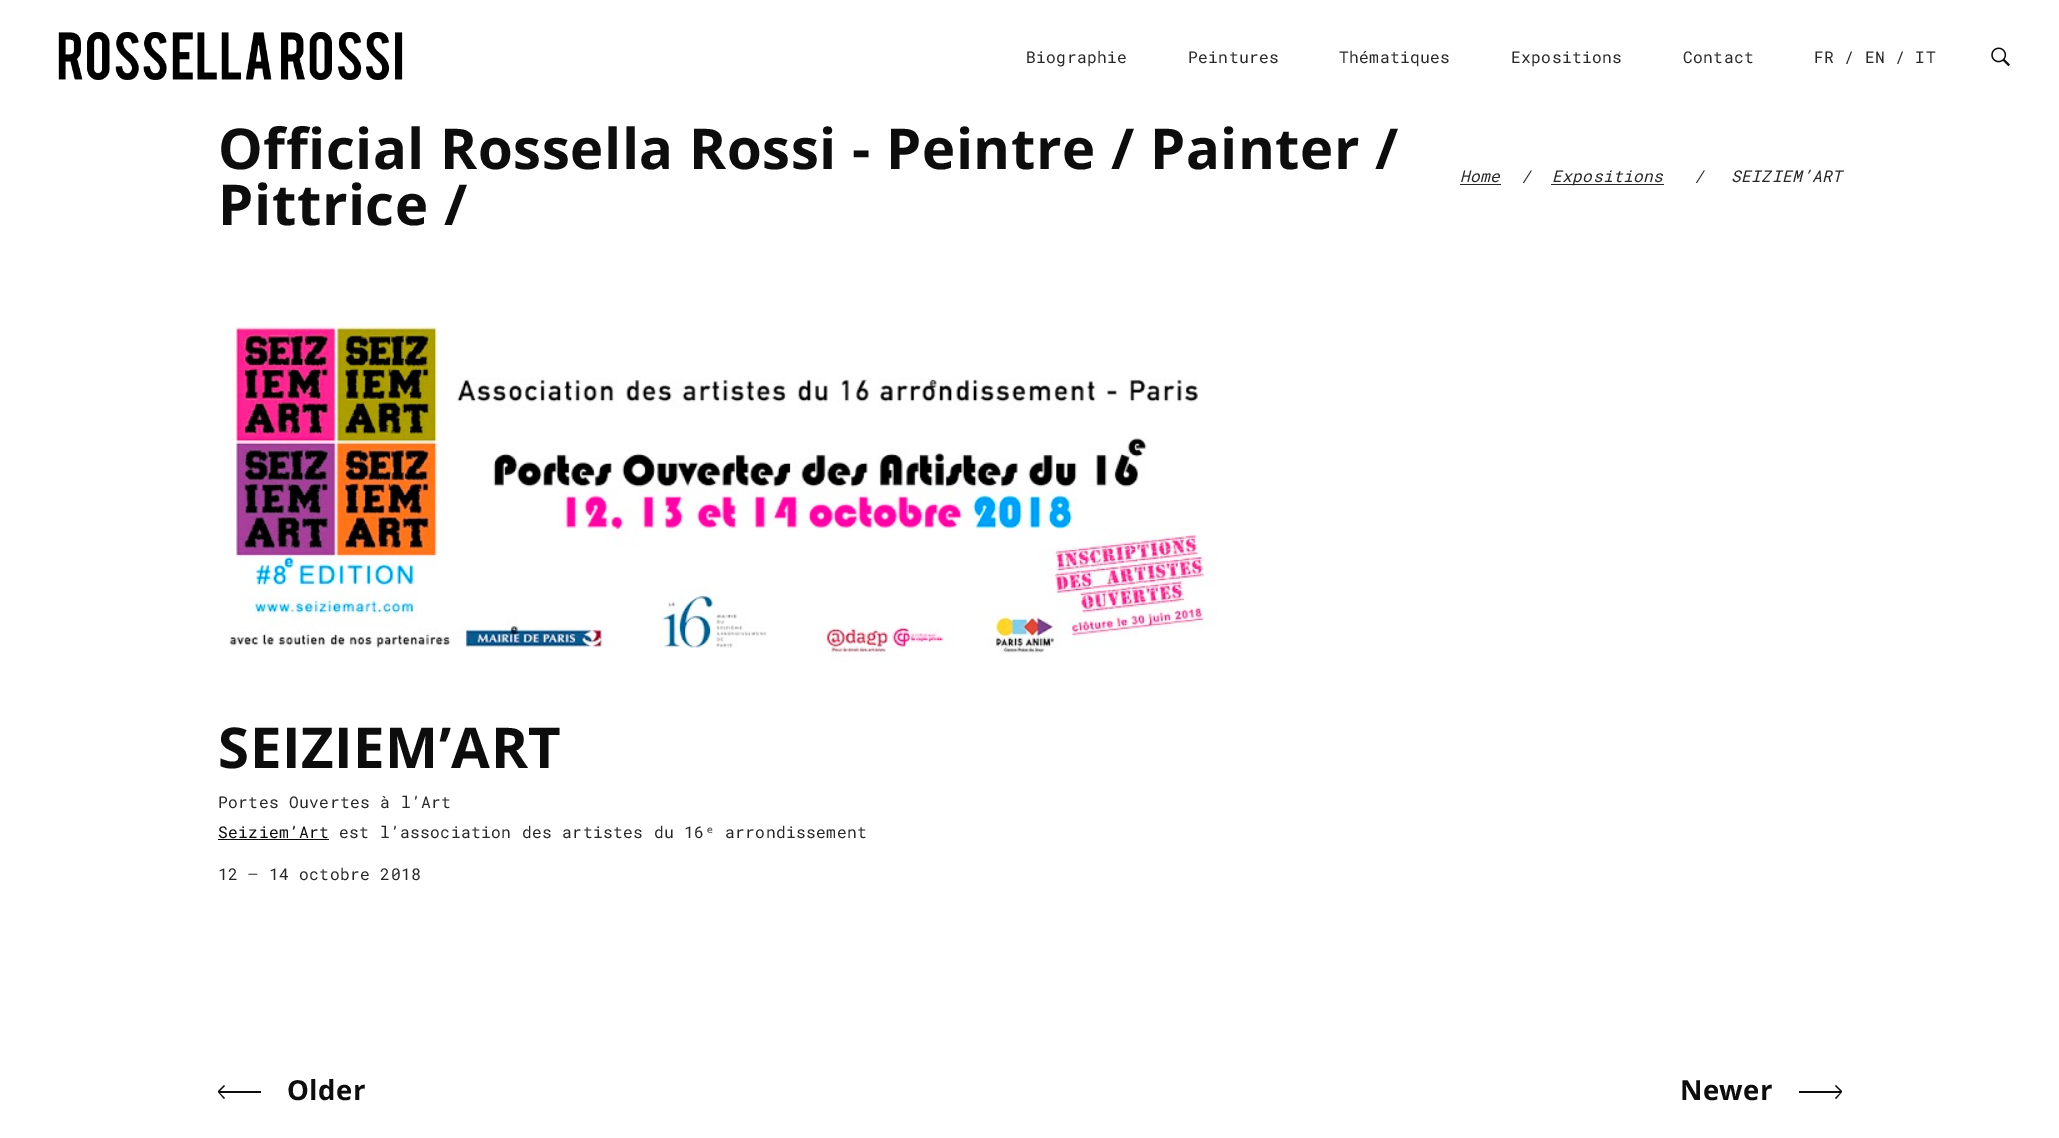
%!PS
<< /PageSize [2059 1138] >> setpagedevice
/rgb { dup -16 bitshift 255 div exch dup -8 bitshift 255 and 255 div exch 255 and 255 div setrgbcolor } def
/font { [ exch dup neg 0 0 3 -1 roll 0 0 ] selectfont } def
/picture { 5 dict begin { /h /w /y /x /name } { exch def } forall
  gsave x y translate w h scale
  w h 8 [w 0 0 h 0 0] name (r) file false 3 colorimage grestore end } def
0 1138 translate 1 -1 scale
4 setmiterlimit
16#FFFFFF rgb
0 0 2059 1138 rectfill
(pic1.raw) 58 32 345 48 picture
/RobotoMono-Regular 16.25 font
16#272727 rgb
1026 63 moveto 0.4 0 (Biographie) ashow
1188 63 moveto 0.4 0 (Peintures) ashow
1339 63 moveto 0.4 0 (Thématiques) ashow
1511 63 moveto 0.4 0 (Expositions) ashow
1683 63 moveto 0.4 0 (Contact) ashow
1814 63 moveto 0.4 0 (FR / EN / IT) ashow
(pic2.raw) 1991 47 19 20 picture
/OpenSans-Bold 56.25 font
16#0D0D0D rgb
218 169 moveto 0.55 0 (Official Rossella Rossi - Peintre / Painter /) ashow
218 225 moveto 0.55 0 (Pittrice /) ashow
/RobotoMono-Italic 16.25 font
16#272727 rgb
1460 182 moveto 0.4 0 (Home) ashow
1460 184 41 1 rectfill
1521 182 moveto 0.4 0 (/) ashow
1551 184 113 1 rectfill
1552 182 moveto 0.4 0 (Expositions) ashow
1694 182 moveto 0.4 0 (/) ashow
1731 182 moveto 0.4 0 (SEIZIEM’ART) ashow
(pic3.raw) 228 326 990 336 picture
/OpenSans-Bold 56.25 font
16#0D0D0D rgb
218 768 moveto 0.55 0 (SEIZIEM’ART) ashow
/RobotoMono-Regular 16.25 font
16#272727 rgb
218 808 moveto 0.4 0 (Portes Ouvertes à l’Art) ashow
16#0D0D0D rgb
218 838 moveto 0.4 0 (Seiziem’Art) ashow
218 839 111 1 rectfill
16#272727 rgb
339 838 moveto 0.4 0 (est l’association des artistes du 16) ashow
/DejaVuSansMono-Regular 16.25 font
705 838 moveto 0.4 0 (ᵉ) ashow
/RobotoMono-Regular 16.25 font
725 838 moveto 0.4 0 (arrondissement) ashow
218 880 moveto 0.4 0 (12 – 14 octobre 2018) ashow
16#0D0D0D rgb
225 1086 moveto 220 1091 lineto 261 1091 lineto 261 1093 lineto 220 1093 lineto 225 1098 lineto 224 1099 lineto 218 1092 lineto 218 1091 lineto 224 1085 lineto closepath fill
/OpenSans-Bold 27.5 font
287 1100 moveto 0.4 0 (Older) ashow
1680 1100 moveto 0.4 0 (Newer) ashow
1835 1098 moveto 1840 1093 lineto 1799 1093 lineto 1799 1091 lineto 1840 1091 lineto 1835 1086 lineto 1836 1085 lineto 1842 1091 lineto 1842 1092 lineto 1836 1099 lineto closepath fill
showpage
